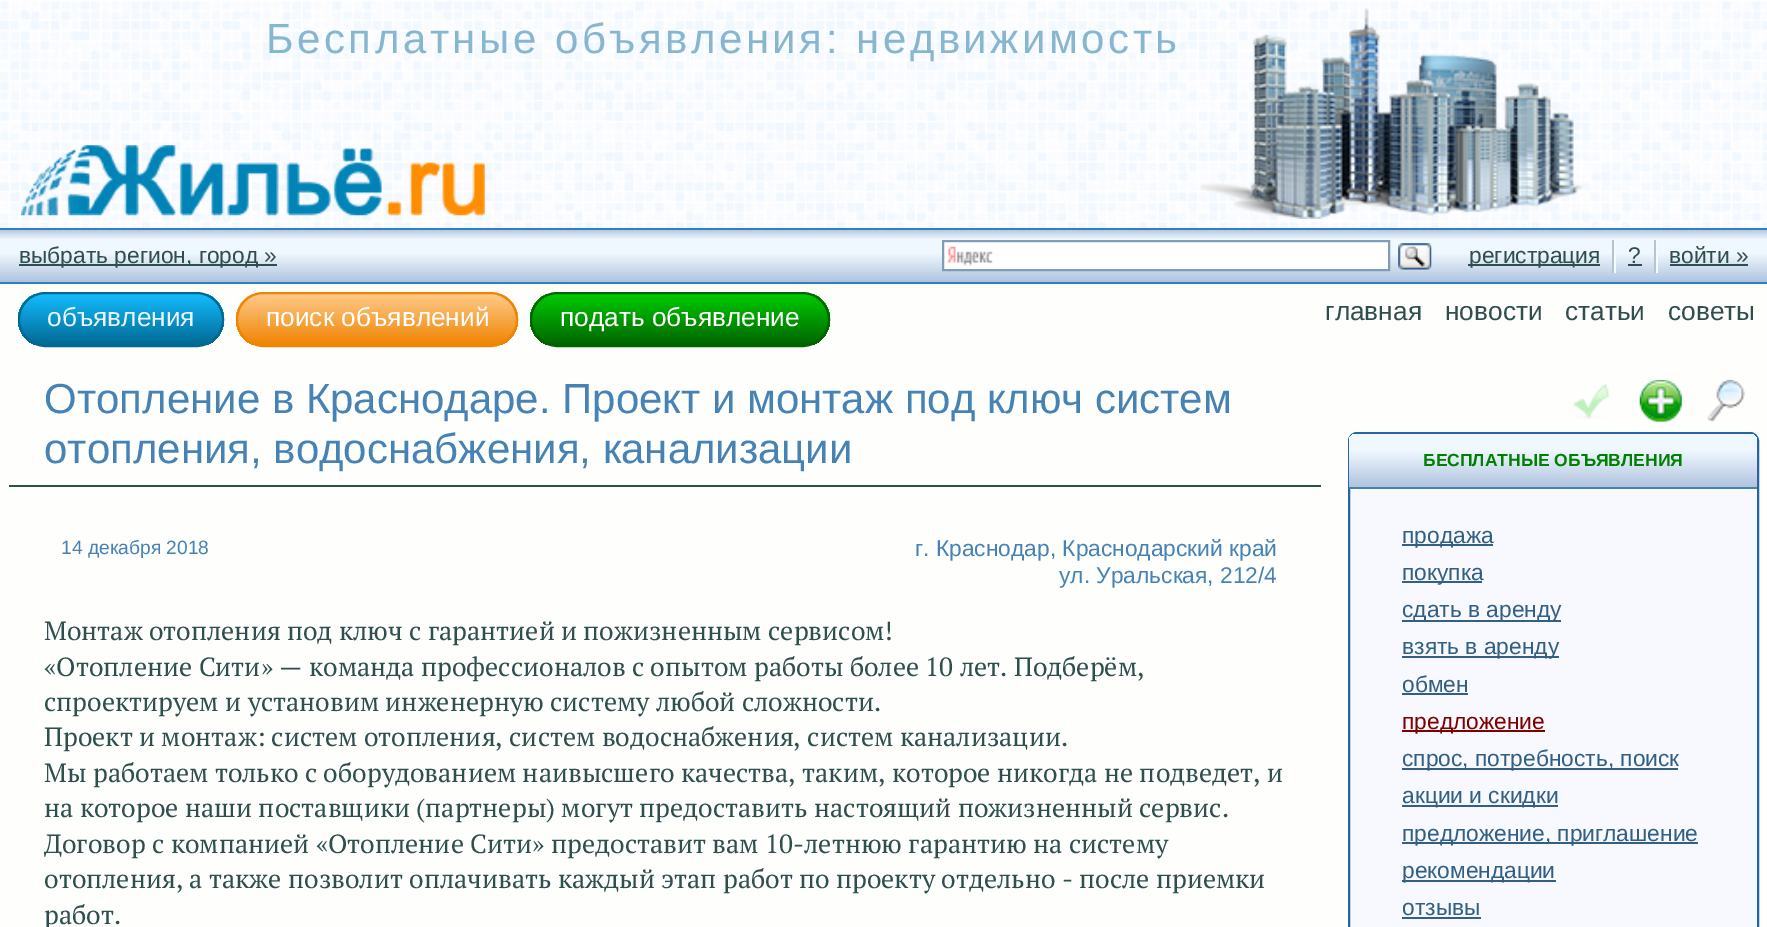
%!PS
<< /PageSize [1767 927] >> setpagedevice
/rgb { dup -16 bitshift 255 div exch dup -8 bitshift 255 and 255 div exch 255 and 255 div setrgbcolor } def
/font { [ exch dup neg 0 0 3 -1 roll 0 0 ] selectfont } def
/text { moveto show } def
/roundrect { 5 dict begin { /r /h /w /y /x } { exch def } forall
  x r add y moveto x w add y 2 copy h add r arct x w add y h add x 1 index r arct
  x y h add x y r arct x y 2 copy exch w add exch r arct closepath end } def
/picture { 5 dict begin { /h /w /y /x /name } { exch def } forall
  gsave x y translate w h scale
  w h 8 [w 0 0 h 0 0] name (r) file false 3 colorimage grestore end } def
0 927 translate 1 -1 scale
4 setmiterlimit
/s1 { /LiberationSans-Regular 22.75 font 16#2F4F4F rgb } def
/s2 { /LiberationSans-Regular 26.25 font 16#E9F6FE rgb } def
/s3 { /LiberationSans-Regular 26.25 font 16#FFFFFF rgb } def
/s4 { /LiberationSans-Regular 26.25 font 16#2F4F4F rgb } def
/s5 { /LiberationSans-Regular 42 font 16#4682B4 rgb } def
/s6 { /LiberationSans-Regular 19.25 font 16#4682B4 rgb } def
/s7 { /LiberationSans-Regular 22.75 font 16#4682B4 rgb } def
/s8 { /PTSerif-Regular 26.25 font 16#2F4F4F rgb } def
/s9 { /LiberationSans-Bold 17.5 font 16#008000 rgb } def
/s10 { /LiberationSans-Regular 22.75 font 16#326085 rgb } def
/s11 { /LiberationSans-Regular 22.75 font 16#800000 rgb } def
16#FEFFFD rgb
0 0 1767 927 rectfill
(pic1.raw) 0 1 1767 227 picture
(pic2.raw) 1200 8 383 211 picture
/LiberationSans-Regular 42 font
16#87B6D0 rgb
266 53 moveto 3.5 0 (Бесплатные объявления: недвижимость) ashow
(pic3.raw) 21 145 464 71 picture
gsave 0 230 moveto 1767 230 lineto 1767 282 lineto 0 282 lineto closepath clip newpath
<< /ShadingType 2 /ColorSpace /DeviceRGB /Coords [884 229 884 282] /Extend [true true] /Function << /FunctionType 3 /Domain [0 1] /Functions [<< /FunctionType 2 /Domain [0 1] /C0 [0.69 0.769 0.871] /C1 [0.941 0.973 1] /N 1 >> << /FunctionType 2 /Domain [0 1] /C0 [0.941 0.973 1] /C1 [0.941 0.973 1] /N 1 >> << /FunctionType 2 /Domain [0 1] /C0 [0.941 0.973 1] /C1 [0.69 0.769 0.871] /N 1 >>] /Bounds [0.2 0.45] /Encode [0 1 0 1 0 1] >> >> shfill grestore
16#2E7ECE rgb
0 228 1767 2 rectfill
0 282 1767 2 rectfill
16#2F4F4F rgb
19 264 258 2 rectfill
s1
(выбрать регион, город ») 19 263 text
16#FFFFFF rgb
944 242 444 27 rectfill
(pic4.raw) 946 246 47 20 picture
16#7F9DB9 rgb
2 setlinewidth
943 241 446 29 rectstroke
(pic5.raw) 1398 243 34 27 picture
16#B0C4DE rgb
1612 240 2 33 rectfill
16#2F4F4F rgb
1468 264 132 2 rectfill
(регистрация) 1469 263 text
16#B0C4DE rgb
1654 240 2 33 rectfill
16#F8F8FF rgb
1614 240 2 33 rectfill
s1
(?) 1628 263 text
1628 264 14 2 rectfill
16#F8F8FF rgb
1656 240 2 33 rectfill
s1
(войти ») 1669 263 text
1670 264 78 2 rectfill
gsave
18 292 206 55 27.5 roundrect clip newpath
gsave 18 294 moveto 224 294 lineto 224 345 lineto 18 345 lineto closepath clip newpath
<< /ShadingType 2 /ColorSpace /DeviceRGB /Coords [121 294 121 345] /Extend [true true] /Function << /FunctionType 2 /Domain [0 1] /C0 [0.078 0.737 1] /C1 [0 0.412 0.576] /N 1 >> >> shfill grestore
grestore
16#006993 rgb
19 293 204 53 26.5 roundrect stroke
s2
(объявления) 47 326 text
gsave
236 292 282 55 27.5 roundrect clip newpath
gsave 236 294 moveto 518 294 lineto 518 345 lineto 236 345 lineto closepath clip newpath
<< /ShadingType 2 /ColorSpace /DeviceRGB /Coords [377 294 377 345] /Extend [true true] /Function << /FunctionType 2 /Domain [0 1] /C0 [1 0.792 0.541] /C1 [0.941 0.518 0] /N 1 >> >> shfill grestore
grestore
16#F08400 rgb
237 293 280 53 26.5 roundrect stroke
s3
(поиск объявлений) 266 326 text
gsave
530 292 300 55 27.5 roundrect clip newpath
gsave 530 294 moveto 830 294 lineto 830 345 lineto 530 345 lineto closepath clip newpath
<< /ShadingType 2 /ColorSpace /DeviceRGB /Coords [680 294 680 345] /Extend [true true] /Function << /FunctionType 2 /Domain [0 1] /C0 [0 0.792 0] /C1 [0 0.392 0] /N 1 >> >> shfill grestore
grestore
16#006400 rgb
531 293 298 53 26.5 roundrect stroke
s3
(подать объявление) 560 326 text
s4
(главная) 1325 320 text
(новости) 1445 320 text
(статьи) 1565 320 text
(советы) 1668 320 text
9 485 1312 2 rectfill
s5
(Отопление в Краснодаре. Проект и монтаж под ключ систем) 44 413 text
(отопления, водоснабжения, канализации) 44 463 text
s6
(14 декабря 2018) 61 554 text
s7
(г. Краснодар, Краснодарский край) 915 556 text
(ул. Уральская, 212/4) 1059 583 text
s8
(Монтаж отопления под ключ с гарантией и пожизненным сервисом!) 44 640 text
(«Отопление Сити» — команда профессионалов с опытом работы более 10 лет. Подберём,) 44 676 text
(спроектируем и установим инженерную систему любой сложности.) 44 711 text
(Проект и монтаж: систем отопления, систем водоснабжения, систем канализации.) 44 746 text
(Мы работаем только с оборудованием наивысшего качества, таким, которое никогда не подведет, и) 44 782 text
(на которое наши поставщики \(партнеры\) могут предоставить настоящий пожизненный сервис.) 44 817 text
gsave
44 613 1251 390 rectclip
(Договор с компанией «Отопление Сити» предоставит вам 10-летнюю гарантию на систему) 44 853 text
grestore
(отопления, а также позволит оплачивать каждый этап работ по проекту отдельно - после приемки) 44 888 text
(работ.) 44 924 text
(pic6.raw) 1573 383 37 36 picture
(pic7.raw) 1639 379 43 43 picture
(pic8.raw) 1707 379 38 43 picture
16#F8F8FF rgb
1349 433 409 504 8 roundrect gsave fill grestore
16#2565A5 rgb
stroke
gsave 1356 434 moveto 1750 434 lineto 1754 434 1757 437 1757 441 curveto 1757 487 lineto 1349 487 lineto 1349 441 lineto 1349 437 1352 434 1356 434 curveto closepath clip newpath
<< /ShadingType 2 /ColorSpace /DeviceRGB /Coords [1553 434 1553 487] /Extend [true true] /Function << /FunctionType 3 /Domain [0 1] /Functions [<< /FunctionType 2 /Domain [0 1] /C0 [0.941 0.973 1] /C1 [0.941 0.973 1] /N 1 >> << /FunctionType 2 /Domain [0 1] /C0 [0.941 0.973 1] /C1 [0.69 0.769 0.871] /N 1 >>] /Bounds [0.3] /Encode [0 1 0 1] >> >> shfill grestore
16#4682B4 rgb
1349 487 408 2 rectfill
s9
(БЕСПЛАТНЫЕ ОБЪЯВЛЕНИЯ) 1423 466 text
16#326085 rgb
1402 544 91 2 rectfill
s10
(продажа) 1402 543 text
1402 581 80 2 rectfill
(покупка) 1402 580 text
1402 620 159 2 rectfill
(сдать в аренду) 1402 617 text
1402 656 157 2 rectfill
(взять в аренду) 1402 654 text
(обмен) 1402 692 text
1402 693 66 2 rectfill
16#800000 rgb
1402 730 143 2 rectfill
(предложение) 1402 729 text
16#326085 rgb
1402 768 276 2 rectfill
(спрос, потребность, поиск) 1402 766 text
1402 805 156 2 rectfill
(акции и скидки) 1402 803 text
1402 842 296 2 rectfill
(предложение, приглашение) 1402 841 text
1402 880 154 2 rectfill
(рекомендации) 1402 878 text
(отзывы) 1402 915 text
1402 917 79 2 rectfill
showpage
